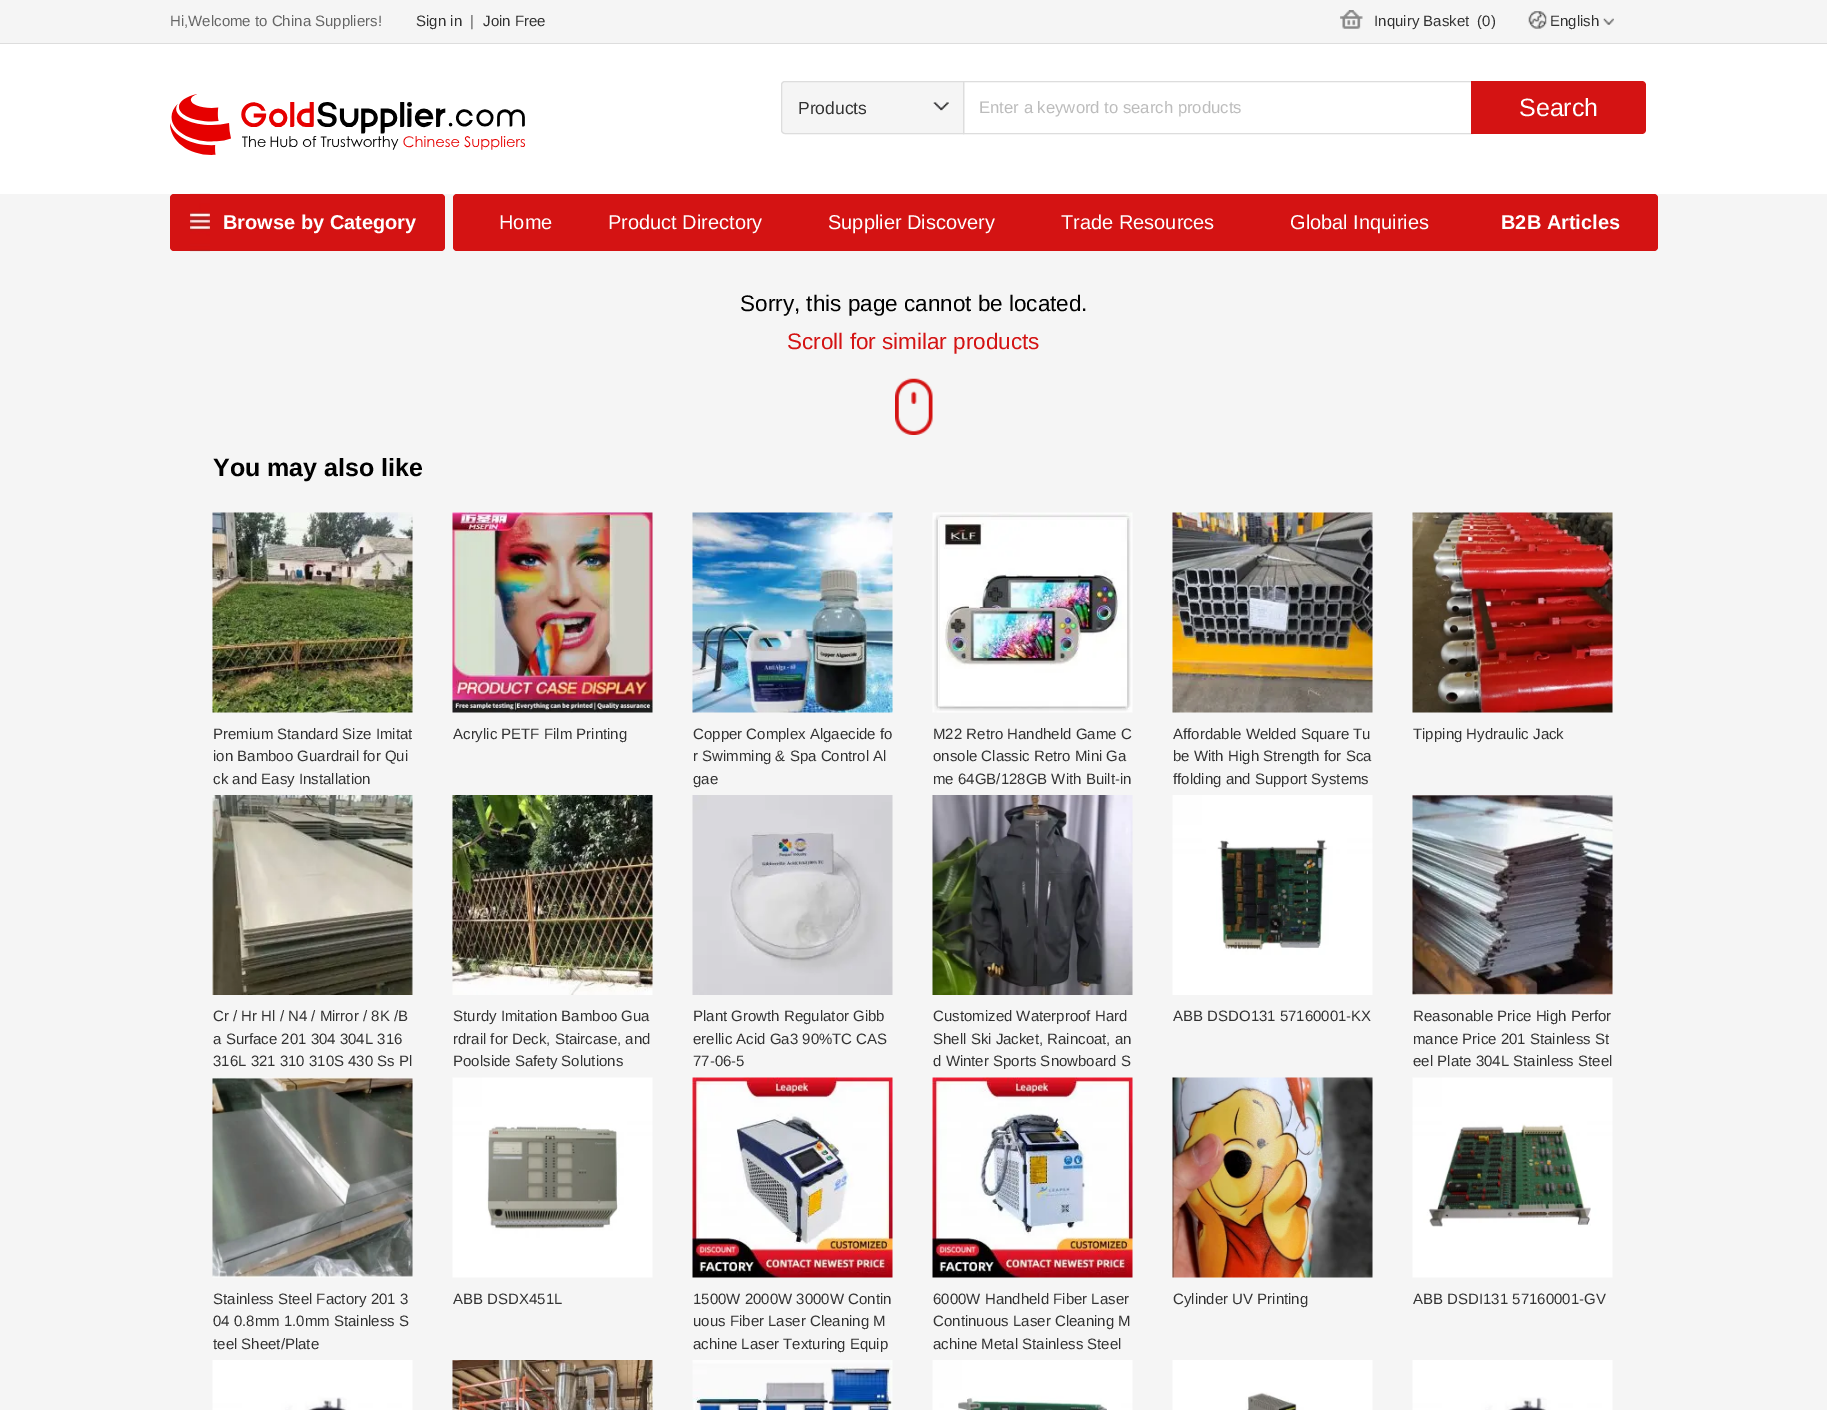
%!PS
<< /PageSize [1827 1410] >> setpagedevice
/rgb { dup -16 bitshift 255 div exch dup -8 bitshift 255 and 255 div exch 255 and 255 div setrgbcolor } def
/font { [ exch dup neg 0 0 3 -1 roll 0 0 ] selectfont } def
/text { moveto show } def
/roundrect { 5 dict begin { /r /h /w /y /x } { exch def } forall
  x r add y moveto x w add y 2 copy h add r arct x w add y h add x 1 index r arct
  x y h add x y r arct x y 2 copy exch w add exch r arct closepath end } def
/picture { 5 dict begin { /h /w /y /x /name } { exch def } forall
  gsave x y translate w h scale
  w h 8 [w 0 0 h 0 0] name (r) file false 3 colorimage grestore end } def
0 1410 translate 1 -1 scale
4 setmiterlimit
/s1 { /LiberationSans-Regular 15 font 16#666666 rgb } def
/s2 { /LiberationSans-Regular 15 font 16#333333 rgb } def
/s3 { /LiberationSans-Regular 17.5 font 16#333333 rgb } def
/s4 { /LiberationSans-Regular 16.7 font 16#BCBCBC rgb } def
/s5 { /LiberationSans-Regular 25 font 16#FFFFFF rgb } def
/s6 { /LiberationSans-Bold 20 font 16#FFFFFF rgb } def
/s7 { /LiberationSans-Regular 20 font 16#FFFFFF rgb } def
/s8 { /LiberationSans-Regular 22.5 font 16#000000 rgb } def
/s9 { /LiberationSans-Regular 22.5 font 16#D41313 rgb } def
/s10 { /LiberationSans-Bold 25 font 16#000000 rgb } def
16#F5F5F5 rgb
0 0 1827 1410 rectfill
16#DDDDDD rgb
0 43 1827 1 rectfill
s1
(Hi,Welcome to China Suppliers!) 170 26 text
s2
(Sign in) 416 26 text
s1
(|) 470 26 text
s2
(Join Free) 483 26 text
(pic1.raw) 1340 10 23 19 picture
(Inquiry Basket  \(0\)) 1374 26 text
(pic2.raw) 1528 11 19 18 picture
(English) 1550 26 text
(pic3.raw) 1603 18 11 7 picture
16#FFFFFF rgb
0 44 1827 150 rectfill
(pic4.raw) 170 94 355 61 picture
16#DDDDDD rgb
963.5 81.5 509 52 rectstroke
16#F5F5F5 rgb
785 81.5 moveto 963.5 81.5 lineto 963.5 133.5 lineto 785 133.5 lineto 783 133.5 781.5 132 781.5 130 curveto 781.5 85 lineto 781.5 83 783 81.5 785 81.5 curveto closepath gsave fill grestore
16#DDDDDD rgb
stroke
s3
(Products) 798 114 text
(pic5.raw) 933 102 16 9 picture
s4
(Enter a keyword to search products) 979 113 text
16#D41313 rgb
1471 81 moveto 1642 81 lineto 1644 81 1646 83 1646 85 curveto 1646 130 lineto 1646 132 1644 134 1642 134 curveto 1471 134 lineto closepath fill
s5
(Search) 1519 116 text
16#D41313 rgb
170 194 275 57 4 roundrect fill
(pic6.raw) 190 193 20 59 picture
s6
(Browse by Category) 223 229 text
16#D41313 rgb
453 194 1205 57 4 roundrect fill
s7
(Home) 499 229 text
(Product Directory) 608 229 text
(Supplier Discovery) 828 229 text
(Trade Resources) 1061 229 text
(Global Inquiries) 1290 229 text
s6
(B2B Articles) 1501 229 text
s8
(Sorry, this page cannot be located.) 740 311 text
s9
(Scroll for similar products) 787 349 text
(pic7.raw) 895 378 38 57 picture
s10
(You may also like) 213 476 text
(pic8.raw) 212 512 201 201 picture
s2
(Premium Standard Size Imitat) 213 739 text
(ion Bamboo Guardrail for Qui) 213 761 text
(ck and Easy Installation) 213 784 text
(pic9.raw) 452 512 201 201 picture
(Acrylic PETF Film Printing) 453 739 text
(pic10.raw) 692 512 201 201 picture
(Copper Complex Algaecide fo) 693 739 text
(r Swimming & Spa Control Al) 693 761 text
(gae) 693 784 text
(pic11.raw) 932 512 201 201 picture
(M22 Retro Handheld Game C) 933 739 text
(onsole Classic Retro Mini Ga) 933 761 text
(me 64GB/128GB With Built-in) 933 784 text
(pic12.raw) 1172 512 201 201 picture
(Affordable Welded Square Tu) 1173 739 text
(be With High Strength for Sca) 1173 761 text
(ffolding and Support Systems) 1173 784 text
(pic13.raw) 1412 512 201 201 picture
(Tipping Hydraulic Jack) 1413 739 text
(pic14.raw) 212 795 201 200 picture
(Cr / Hr Hl / N4 / Mirror / 8K /B) 213 1021 text
(a Surface 201 304 304L 316) 213 1044 text
(316L 321 310 310S 430 Ss Pl) 213 1066 text
(pic15.raw) 452 795 201 200 picture
(Sturdy Imitation Bamboo Gua) 453 1021 text
(rdrail for Deck, Staircase, and) 453 1044 text
(Poolside Safety Solutions) 453 1066 text
(pic16.raw) 692 795 201 200 picture
(Plant Growth Regulator Gibb) 693 1021 text
(erellic Acid Ga3 90%TC CAS) 693 1044 text
(77-06-5) 693 1066 text
(pic17.raw) 932 795 201 200 picture
(Customized Waterproof Hard) 933 1021 text
(Shell Ski Jacket, Raincoat, an) 933 1044 text
(d Winter Sports Snowboard S) 933 1066 text
(pic18.raw) 1172 795 201 200 picture
(ABB DSDO131 57160001-KX) 1173 1021 text
(pic19.raw) 1412 795 201 200 picture
(Reasonable Price High Perfor) 1413 1021 text
(mance Price 201 Stainless St) 1413 1044 text
(eel Plate 304L Stainless Steel) 1413 1066 text
(pic20.raw) 212 1077 201 201 picture
(Stainless Steel Factory 201 3) 213 1304 text
(04 0.8mm 1.0mm Stainless S) 213 1326 text
(teel Sheet/Plate) 213 1349 text
(pic21.raw) 452 1077 201 201 picture
(ABB DSDX451L) 453 1304 text
(pic22.raw) 692 1077 201 201 picture
(1500W 2000W 3000W Contin) 693 1304 text
(uous Fiber Laser Cleaning M) 693 1326 text
(achine Laser Texturing Equip) 693 1349 text
(pic23.raw) 932 1077 201 201 picture
(6000W Handheld Fiber Laser) 933 1304 text
(Continuous Laser Cleaning M) 933 1326 text
(achine Metal Stainless Steel) 933 1349 text
(pic24.raw) 1172 1077 201 201 picture
(Cylinder UV Printing) 1173 1304 text
(pic25.raw) 1412 1077 201 201 picture
(ABB DSDI131 57160001-GV) 1413 1304 text
(pic26.raw) 212 1360 201 50 picture
(pic27.raw) 452 1360 201 50 picture
(pic28.raw) 692 1360 201 50 picture
(pic29.raw) 932 1360 201 50 picture
(pic30.raw) 1172 1360 201 50 picture
(pic26.raw) 1412 1360 201 50 picture
showpage
